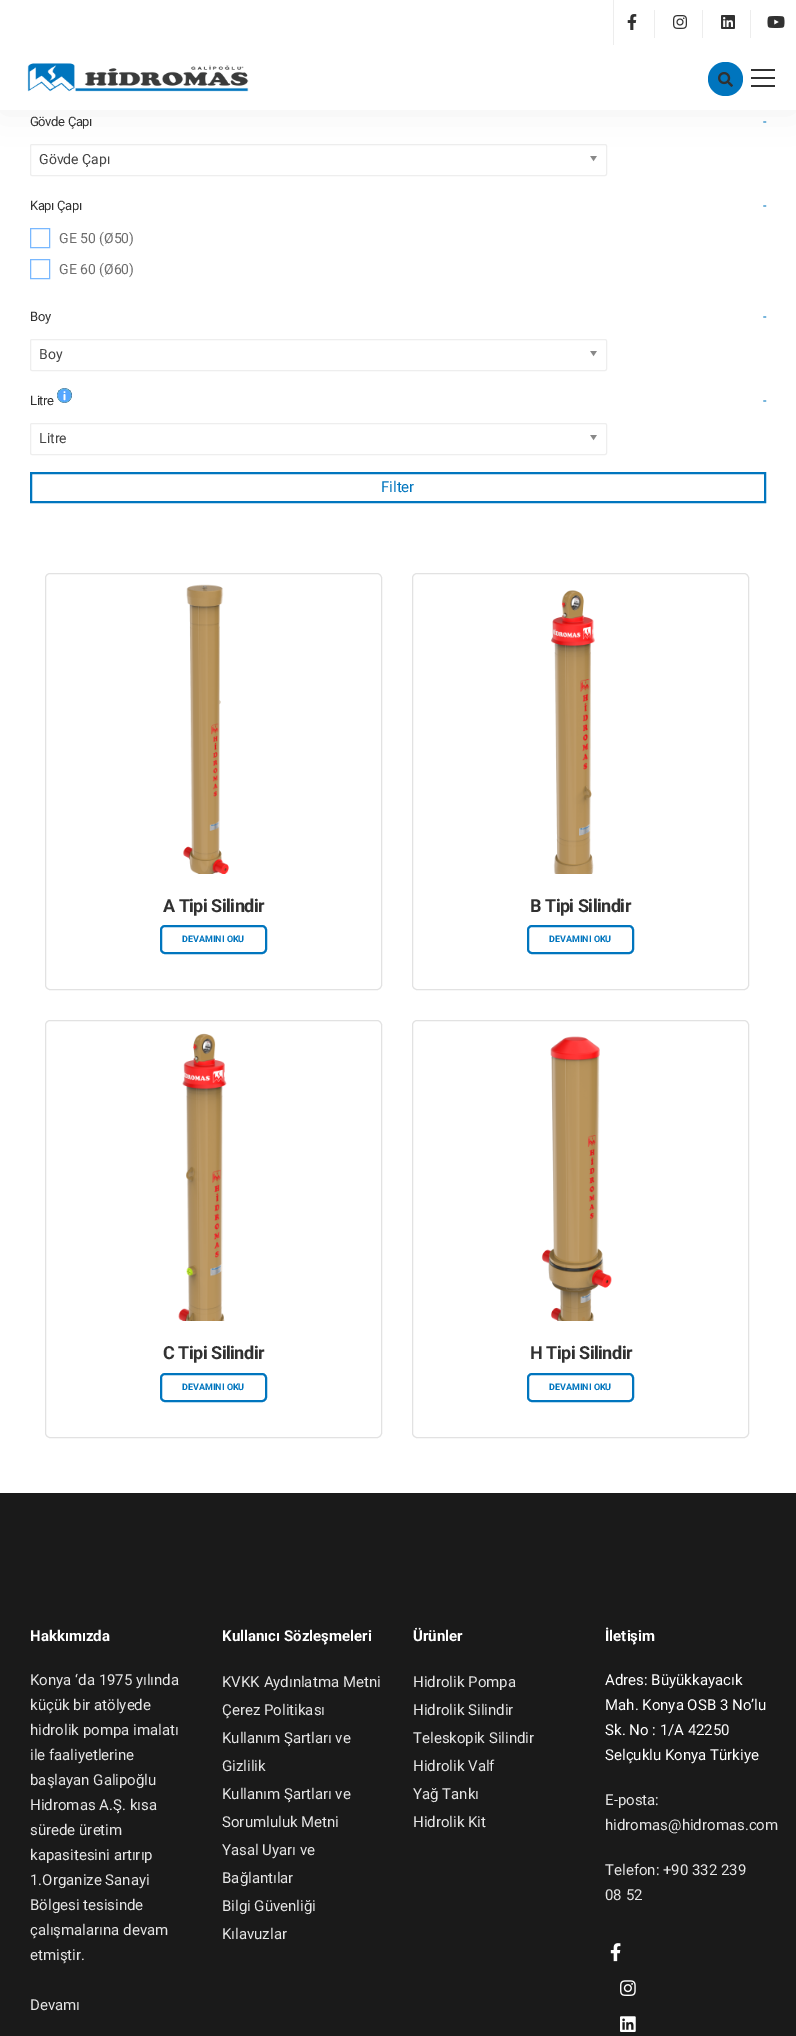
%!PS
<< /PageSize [796 2036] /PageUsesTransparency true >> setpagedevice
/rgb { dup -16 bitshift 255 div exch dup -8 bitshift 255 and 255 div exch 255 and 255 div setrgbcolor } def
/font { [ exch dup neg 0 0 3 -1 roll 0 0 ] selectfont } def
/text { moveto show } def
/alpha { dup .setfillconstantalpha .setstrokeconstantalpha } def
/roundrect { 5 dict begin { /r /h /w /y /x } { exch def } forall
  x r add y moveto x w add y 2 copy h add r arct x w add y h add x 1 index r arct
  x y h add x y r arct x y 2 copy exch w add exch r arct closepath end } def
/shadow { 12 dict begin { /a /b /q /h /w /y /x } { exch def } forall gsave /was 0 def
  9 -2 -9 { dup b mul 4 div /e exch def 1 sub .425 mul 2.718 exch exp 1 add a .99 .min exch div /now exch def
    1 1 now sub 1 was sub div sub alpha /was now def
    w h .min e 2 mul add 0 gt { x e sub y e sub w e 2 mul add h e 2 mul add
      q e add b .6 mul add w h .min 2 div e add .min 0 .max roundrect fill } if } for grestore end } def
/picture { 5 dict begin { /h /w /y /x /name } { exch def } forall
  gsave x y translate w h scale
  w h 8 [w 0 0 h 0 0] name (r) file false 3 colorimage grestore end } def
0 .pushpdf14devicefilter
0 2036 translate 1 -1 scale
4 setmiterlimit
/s1 { /Roboto-Regular 14 font 16#444444 rgb } def
/s2 { /Roboto-Regular 14 font 16#6D6D6D rgb } def
/s3 { /Roboto-Regular 15 font 16#0075BE rgb } def
/s4 { /Roboto-Bold 9 font 16#0075BE rgb } def
/s5 { /Roboto-Bold 15 font 16#FFFFFF rgb } def
/s6 { /Roboto-Regular 15 font 16#E5E5E5 rgb } def
/s7 { /Roboto-Regular 15 font 16#FFFFFF rgb } def
16#FFFFFF rgb
0 0 796 2036 rectfill
16#EEEEEE rgb
30.5 144.5 576 31 1.5 roundrect stroke
(pic7.raw) 590 156 7 6 picture
16#0F0F0F rgb
0 2 796 110 0 20 0.05 shadow
16#FFFFFF rgb
0 0 796 110 rectfill
16#EDEDED rgb
613 0 1 45 rectfill
654 10 1 28 rectfill
(pic1.raw) 627 14 10 16 picture
702 10 1 28 rectfill
(pic2.raw) 673 15 14 14 picture
750 10 1 28 rectfill
(pic3.raw) 721 15 14 14 picture
(pic4.raw) 767 16 18 12 picture
(pic5.raw) 27 63 222 29 picture
16#0075BE rgb
708 62 35 34 17 roundrect fill
(pic6.raw) 718 72 15 15 picture
16#313131 rgb
751 85 24 2 rectfill
751 69 24 2 rectfill
751 77 24 2 rectfill
/Roboto-Regular 13 font
30 126 moveto -0.4 0 (Gövde Çapı) ashow
16#0075BE rgb
763 126 moveto -0.4 0 (-) ashow
s1
(Gövde Çapı) 39 164 text
/Roboto-Regular 13 font
16#313131 rgb
30 210 moveto -0.4 0 (Kapı Çapı) ashow
16#0075BE rgb
763 210 moveto -0.4 0 (-) ashow
16#79B8FF rgb
30.5 228.5 19 19 rectstroke
s2
(GE 50 \(Ø50\)) 59 243 text
16#79B8FF rgb
30.5 259.5 19 19 rectstroke
s2
(GE 60 \(Ø60\)) 59 274 text
/Roboto-Regular 13 font
16#313131 rgb
30 321 moveto -0.4 0 (Boy) ashow
16#0075BE rgb
763 321 moveto -0.4 0 (-) ashow
16#EEEEEE rgb
30.5 339.5 576 31 1.5 roundrect stroke
s1
(Boy) 39 359 text
(pic7.raw) 590 351 7 6 picture
/Roboto-Regular 13 font
16#313131 rgb
30 405 moveto -0.4 0 (Litre) ashow
(pic8.raw) 57 388 15 15 picture
16#0075BE rgb
763 405 moveto -0.4 0 (-) ashow
16#EEEEEE rgb
30.5 423.5 576 31 1.5 roundrect stroke
s1
(Litre) 39 443 text
(pic7.raw) 590 435 7 6 picture
16#0075BE rgb
2 setlinewidth
31 473 734 29 rectstroke
s3
(Filter) 381 492 text
16#E2E2E2 rgb
1 setlinewidth
45.5 573.5 336 416 4.5 roundrect stroke
(pic9.raw) 183 584 46 290 picture
/Roboto-Bold 18 font
16#313131 rgb
163 912 moveto -0.5 0 (A Tipi Silindir) ashow
16#0075BE rgb
2 setlinewidth
161 926 105 27 4 roundrect stroke
s4
(DEVAMINI OKU) 182 942 text
16#E2E2E2 rgb
1 setlinewidth
412.5 573.5 336 416 4.5 roundrect stroke
(pic10.raw) 551 590 44 284 picture
/Roboto-Bold 18 font
16#313131 rgb
530 912 moveto -0.5 0 (B Tipi Silindir) ashow
16#0075BE rgb
2 setlinewidth
528 926 105 27 4 roundrect stroke
s4
(DEVAMINI OKU) 549 942 text
16#E2E2E2 rgb
1 setlinewidth
45.5 1020.5 336 417 4.5 roundrect stroke
(pic11.raw) 178 1033 49 288 picture
/Roboto-Bold 18 font
16#313131 rgb
163 1359 moveto -0.5 0 (C Tipi Silindir) ashow
16#0075BE rgb
2 setlinewidth
161 1374 105 27 4 roundrect stroke
s4
(DEVAMINI OKU) 182 1390 text
16#E2E2E2 rgb
1 setlinewidth
412.5 1020.5 336 417 4.5 roundrect stroke
(pic12.raw) 541 1036 71 285 picture
/Roboto-Bold 18 font
16#313131 rgb
530 1359 moveto -0.5 0 (H Tipi Silindir) ashow
16#0075BE rgb
2 setlinewidth
528 1374 105 27 4 roundrect stroke
s4
(DEVAMINI OKU) 549 1390 text
16#1A1A1A rgb
0 1493 796 543 rectfill
s5
(Hakkımızda) 30 1641 text
s6
(Konya ‘da 1975 yılında) 30 1685 text
(küçük bir atölyede) 30 1710 text
(hidrolik pompa imalatı) 30 1735 text
(ile faaliyetlerine) 30 1760 text
(başlayan Galipoğlu) 30 1785 text
(Hidromas A.Ş. kısa) 30 1810 text
(sürede üretim) 30 1835 text
(kapasitesini artırıp) 30 1860 text
(1.Organize Sanayi) 30 1885 text
(Bölgesi tesisinde) 30 1910 text
(çalışmalarına devam) 30 1935 text
(etmiştir.) 30 1960 text
(Devamı) 30 2010 text
s5
(Kullanıcı Sözleşmeleri) 222 1641 text
s6
(KVKK Aydınlatma Metni) 222 1687 text
(Çerez Politikası) 222 1715 text
(Kullanım Şartları ve) 222 1743 text
(Gizlilik) 222 1771 text
(Kullanım Şartları ve) 222 1799 text
(Sorumluluk Metni) 222 1827 text
(Yasal Uyarı ve) 222 1855 text
(Bağlantılar) 222 1883 text
(Bilgi Güvenliği) 222 1911 text
(Kılavuzlar) 222 1939 text
s5
(Ürünler) 413 1641 text
s6
(Hidrolik Pompa) 413 1687 text
(Hidrolik Silindir) 413 1715 text
(Teleskopik Silindir) 413 1743 text
(Hidrolik Valf) 413 1771 text
(Yağ Tankı) 413 1799 text
(Hidrolik Kit) 413 1827 text
s5
(İletişim) 605 1641 text
s7
(Adres: Büyükkayacık) 605 1685 text
(Mah. Konya OSB 3 No’lu) 605 1710 text
(Sk. No : 1/A 42250) 605 1735 text
(Selçuklu Konya Türkiye) 605 1760 text
s6
(E-posta:) 605 1805 text
(hidromas@hidromas.com) 605 1830 text
(Telefon: +90 332 239) 605 1875 text
(08 52) 605 1900 text
(pic13.raw) 610 1943 11 19 picture
(pic14.raw) 620 1980 16 16 picture
(pic15.raw) 620 2016 16 16 picture
.poppdf14devicefilter showpage
